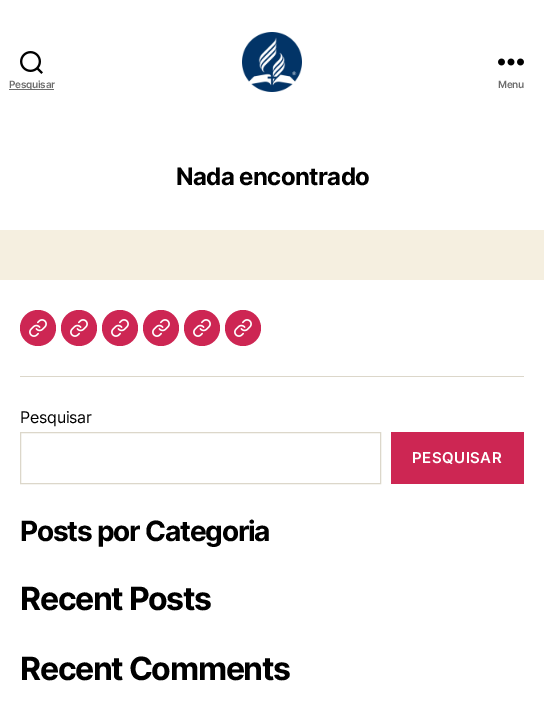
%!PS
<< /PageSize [544 721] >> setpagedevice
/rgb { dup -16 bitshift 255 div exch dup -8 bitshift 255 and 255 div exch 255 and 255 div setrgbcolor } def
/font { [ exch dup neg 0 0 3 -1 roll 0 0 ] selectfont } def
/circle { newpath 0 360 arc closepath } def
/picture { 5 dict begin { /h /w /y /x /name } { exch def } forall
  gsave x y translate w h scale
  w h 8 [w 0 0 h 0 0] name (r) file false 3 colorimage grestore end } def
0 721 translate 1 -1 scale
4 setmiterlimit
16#F5EFE0 rgb
0 0 544 721 rectfill
16#FFFFFF rgb
0 0 544 230 rectfill
(pic1.raw) 20 51 23 23 picture
16#6D6D6D rgb
9 89 45 1 rectfill
/Inter-SemiBold 10 font
9 88 moveto -0.25 0 (Pesquisar) ashow
(pic2.raw) 242 32 60 60 picture
(pic3.raw) 498 58 26 8 picture
498 88 moveto -0.25 0 (Menu) ashow
/Inter-Bold 24 font
16#000000 rgb
176 185 moveto -0.6 0 (Nada encontrado) ashow
16#FFFFFF rgb
0 280 544 441 rectfill
16#DCD7CA rgb
20 376 504 1 rectfill
16#CD2653 rgb
38 328 18 circle fill
(pic4.raw) 29 319 18 18 picture
79 328 18 circle fill
(pic4.raw) 70 319 18 18 picture
120 328 18 circle fill
(pic4.raw) 111 319 18 18 picture
161 328 18 circle fill
(pic4.raw) 152 319 18 18 picture
202 328 18 circle fill
(pic4.raw) 193 319 18 18 picture
243 328 18 circle fill
(pic4.raw) 234 319 18 18 picture
/Inter-Regular 16 font
16#000000 rgb
20 423 moveto -0.25 0 (Pesquisar) ashow
16#DCD7CA rgb
20.5 432.5 360 51 rectstroke
16#CD2653 rgb
391 432 133 52 rectfill
/Inter-SemiBold 15 font
16#FFFFFF rgb
412 463 moveto 0.5 0 (PESQUISAR) ashow
/Inter-Bold 28 font
16#000000 rgb
20 541 moveto -1.2 0 (Posts por Categoria) ashow
/Inter-Bold 32 font
20 610 moveto -1.3 0 (Recent Posts) ashow
20 680 moveto -1.3 0 (Recent Comments) ashow
showpage
